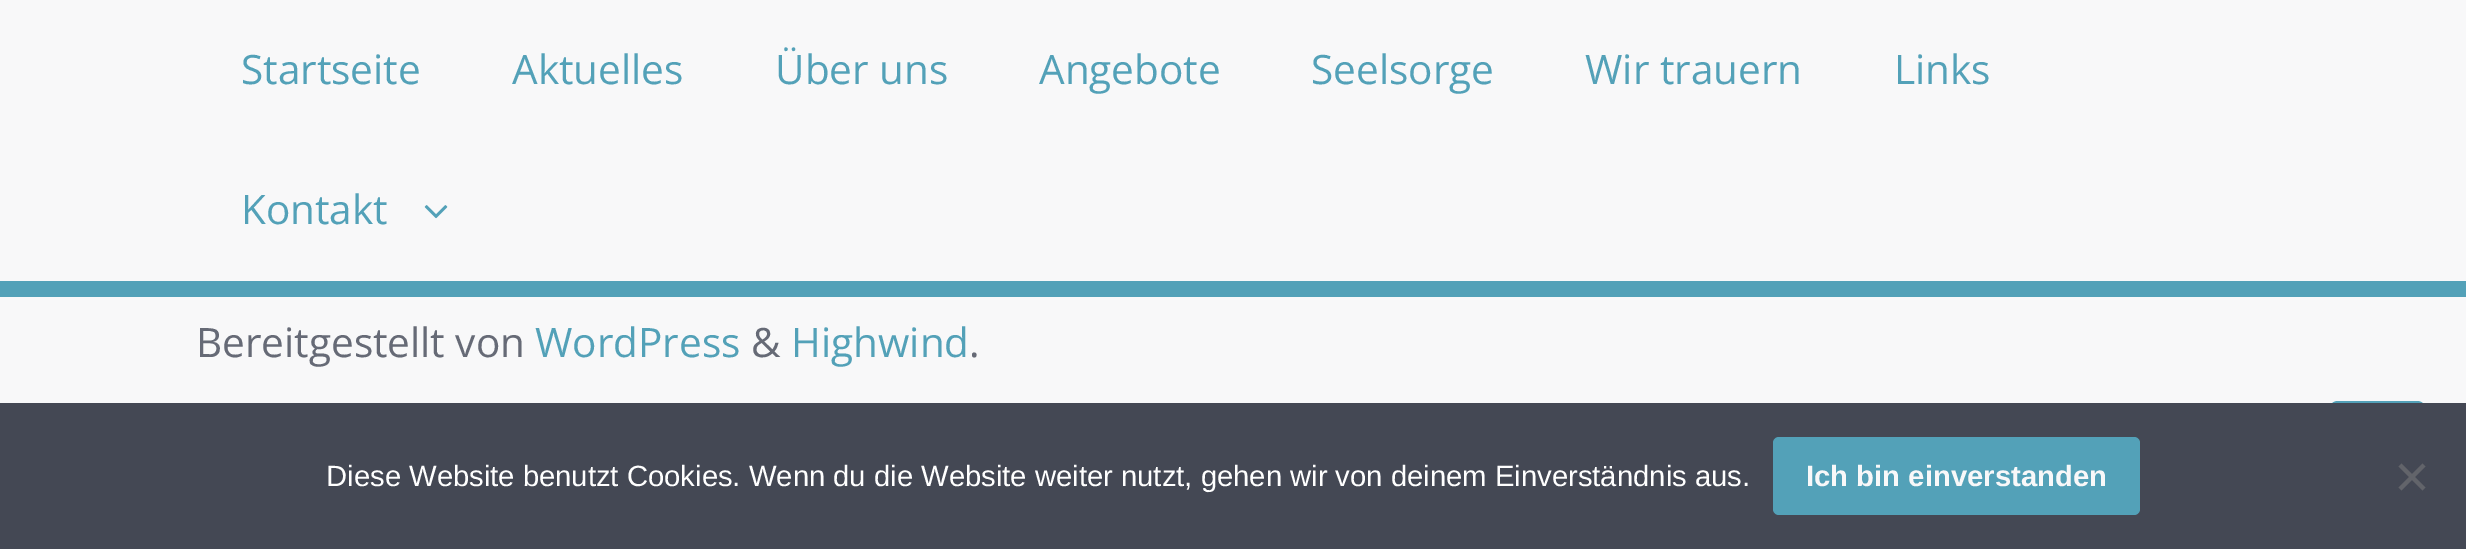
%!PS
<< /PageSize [2466 549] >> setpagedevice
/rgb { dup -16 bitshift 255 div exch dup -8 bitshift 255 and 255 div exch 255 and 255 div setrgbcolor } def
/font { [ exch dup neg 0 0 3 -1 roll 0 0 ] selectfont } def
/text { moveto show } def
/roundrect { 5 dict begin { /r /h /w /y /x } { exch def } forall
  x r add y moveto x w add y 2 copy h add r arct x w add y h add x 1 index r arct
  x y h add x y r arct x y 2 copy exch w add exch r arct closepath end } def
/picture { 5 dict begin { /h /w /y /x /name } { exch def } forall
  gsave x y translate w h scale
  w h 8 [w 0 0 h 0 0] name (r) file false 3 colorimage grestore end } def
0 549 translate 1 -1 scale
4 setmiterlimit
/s1 { /OpenSans-Regular 40.5 font 16#53A1B8 rgb } def
/s2 { /OpenSans-Regular 40.5 font 16#666A76 rgb } def
/s3 { /LiberationSans-Regular 29.25 font 16#FFFFFF rgb } def
/s4 { /LiberationSans-Bold 29.25 font 16#F8F8F9 rgb } def
16#F8F8F9 rgb
0 0 2466 549 rectfill
16#53A1B8 rgb
0 281 2466 16 rectfill
s1
(Startseite) 241 84 text
(Aktuelles) 512 84 text
(Über uns) 775 84 text
(Angebote) 1039 84 text
(Seelsorge) 1311 84 text
(Wir trauern) 1585 84 text
(Links) 1894 84 text
(Kontakt) 241 224 text
(pic1.raw) 424 205 24 14 picture
s2
(Bereitgestellt von) 196 357 text
s1
(WordPress) 535 357 text
s2
(&) 751 357 text
s1
(Highwind) 791 357 text
s2
(.) 969 357 text
16#53A1B8 rgb
2329 401 97 108 9 roundrect fill
16#444854 rgb
0 403 2466 146 rectfill
s3
(Diese Website benutzt Cookies. Wenn du die Website weiter nutzt, gehen wir von deinem Einverständnis aus.) 326 486 text
16#53A1B8 rgb
1773 437 367 78 6 roundrect fill
s4
(Ich bin einverstanden) 1806 486 text
16#62646A rgb
2422.5 463.5 moveto 2425.5 466.5 lineto 2401.5 490.5 lineto 2398.5 487.5 lineto closepath fill
2398.5 466.5 moveto 2401.5 463.5 lineto 2425.5 487.5 lineto 2422.5 490.5 lineto closepath fill
showpage
